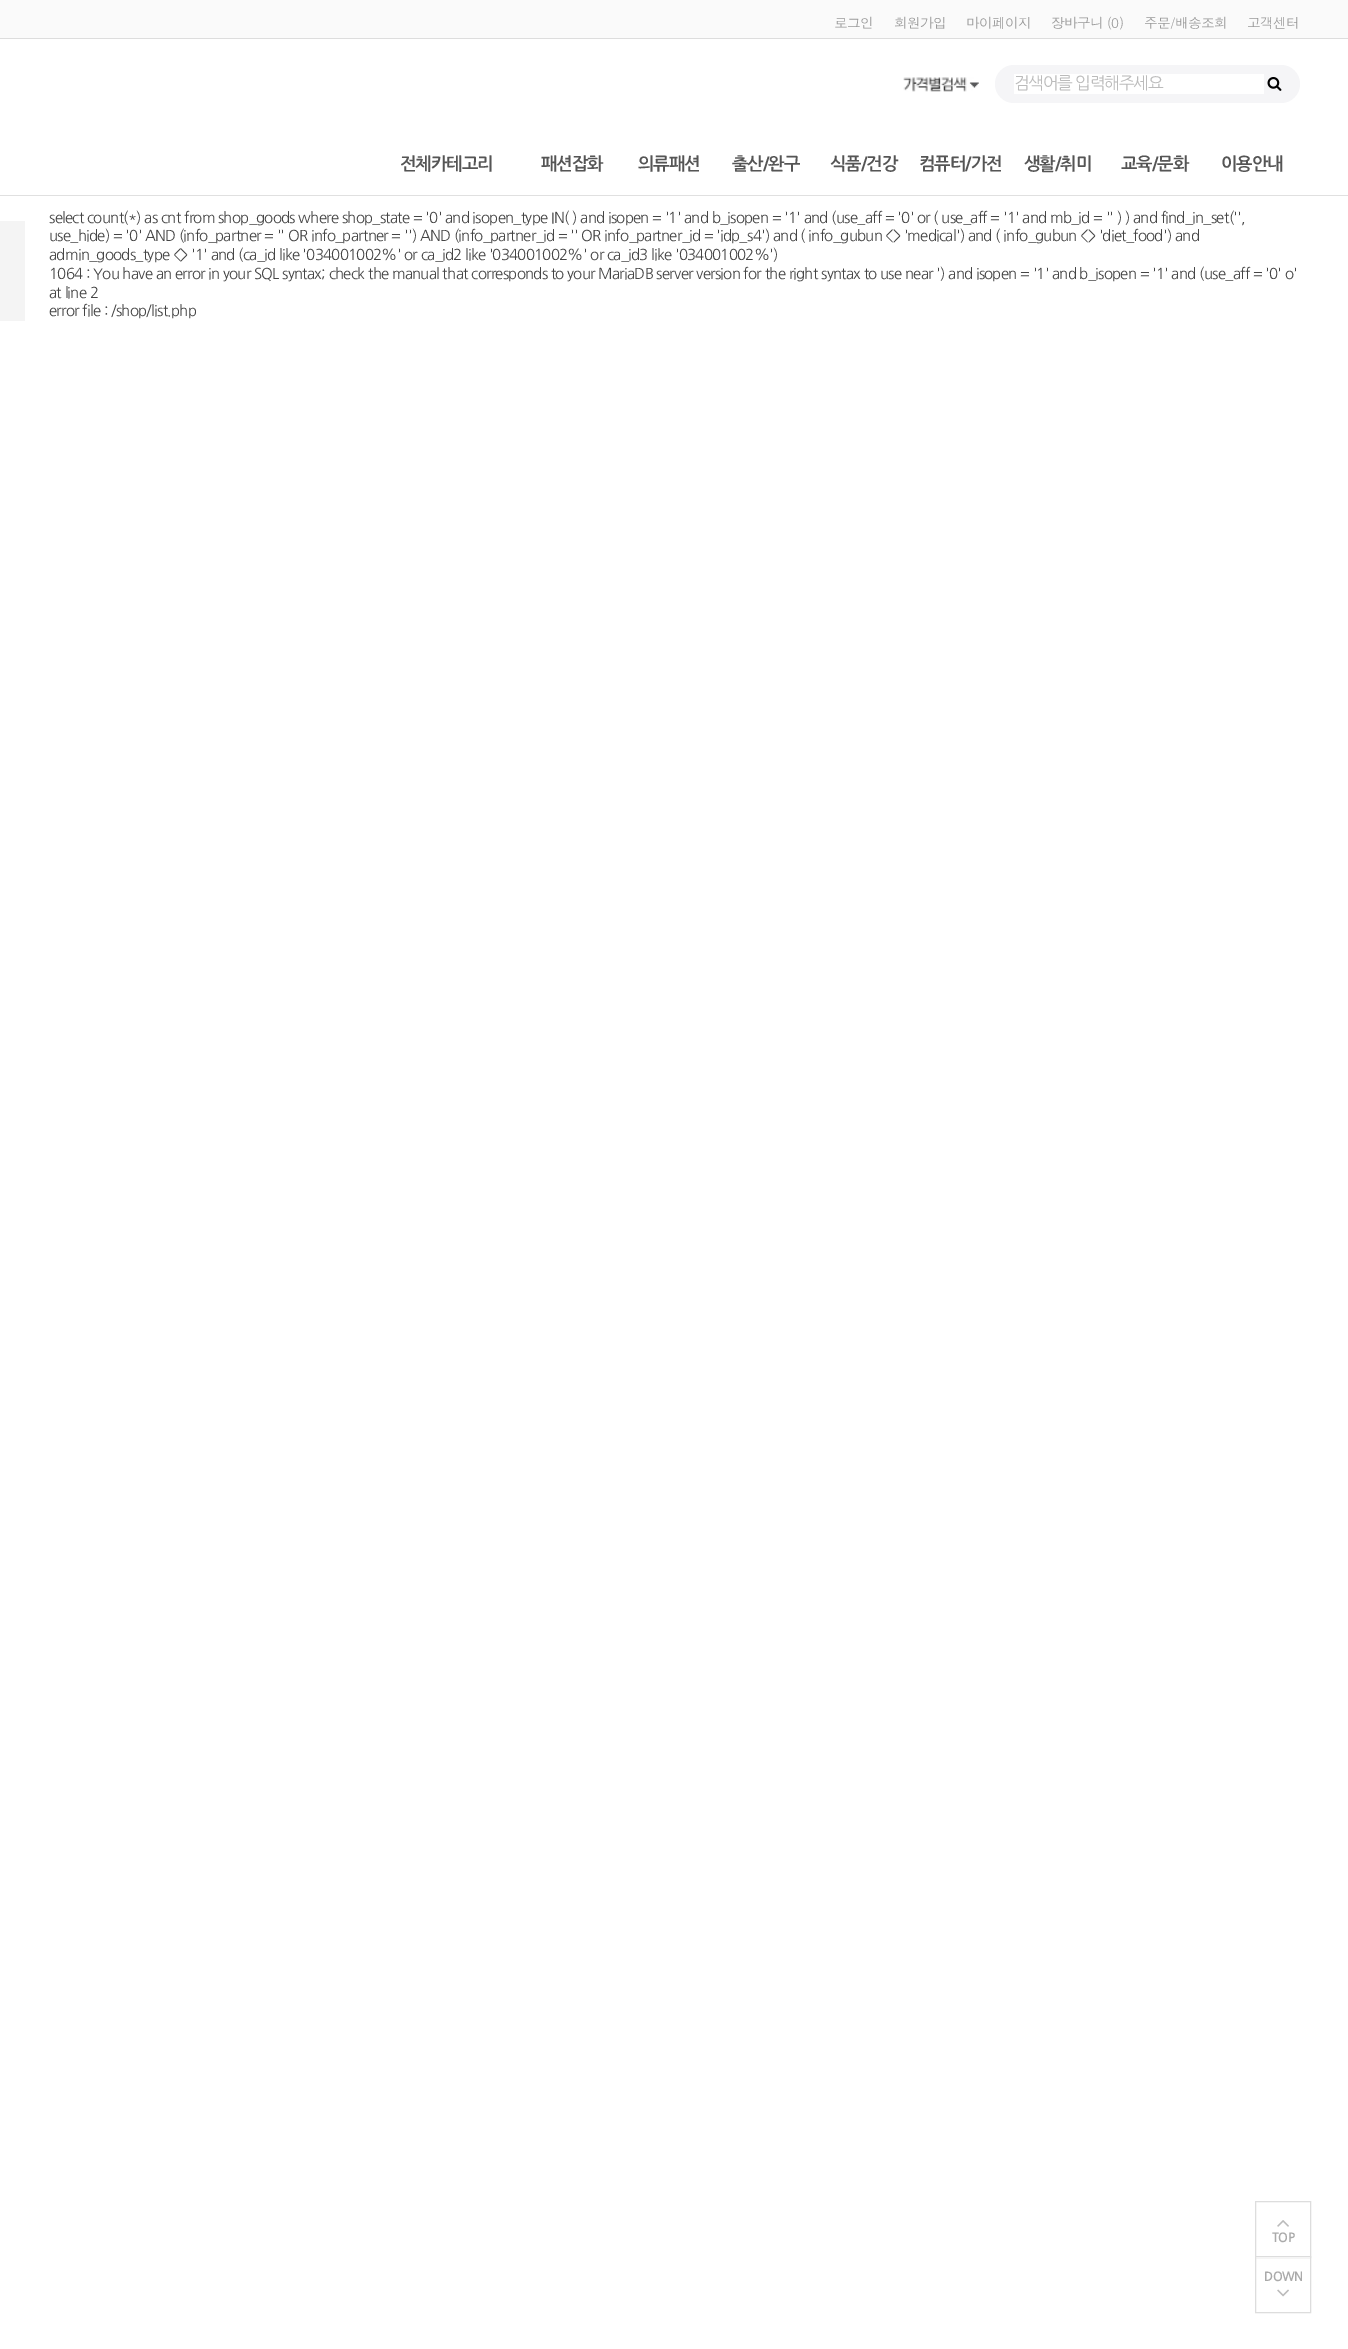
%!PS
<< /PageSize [1348 2349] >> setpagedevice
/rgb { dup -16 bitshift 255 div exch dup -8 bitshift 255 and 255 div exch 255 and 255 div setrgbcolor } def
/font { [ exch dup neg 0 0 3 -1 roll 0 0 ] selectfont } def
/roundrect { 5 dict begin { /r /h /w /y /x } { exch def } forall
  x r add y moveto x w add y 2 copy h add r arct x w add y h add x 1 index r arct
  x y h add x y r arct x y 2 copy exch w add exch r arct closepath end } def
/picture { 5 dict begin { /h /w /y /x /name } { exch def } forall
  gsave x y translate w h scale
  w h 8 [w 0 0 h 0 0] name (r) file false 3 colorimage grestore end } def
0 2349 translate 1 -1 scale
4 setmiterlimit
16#FFFFFF rgb
0 0 1348 2349 rectfill
16#FAFAFA rgb
0 0 1348 38 rectfill
16#DDDDDD rgb
0 38 1348 1 rectfill
/Dotum-Regular 13.75 font
16#999999 rgb
834 28 moveto -0.75 0 (로그인) ashow
894 28 moveto -0.75 0 (회원가입) ashow
966 28 moveto -0.75 0 (마이페이지) ashow
1051 28 moveto -0.75 0 (장바구니 \(0\)) ashow
1144 28 moveto -0.75 0 (주문/배송조회) ashow
1247 28 moveto -0.75 0 (고객센터) ashow
(pic1.raw) 903 77 76 15 picture
16#F5F5F7 rgb
995 65 305 38 19 roundrect fill
16#FFFFFF rgb
1014 74 250 20 rectfill
/NanumGothic-Regular 16.75 font
16#BBBBBB rgb
1014 89 moveto -1.25 0 (검색어를 입력해주세요) ashow
(pic2.raw) 1267 77 15 14 picture
/NanumGothic-Bold 17.5 font
16#555555 rgb
400 170 moveto -1 0 (전체카테고리) ashow
541 170 moveto -1 0 (패션잡화) ashow
638 170 moveto -1 0 (의류패션) ashow
732 170 moveto -1 0 (출산/완구) ashow
830 170 moveto -1 0 (식품/건강) ashow
919 170 moveto -1 0 (컴퓨터/가전) ashow
1024 170 moveto -1 0 (생활/취미) ashow
1121 170 moveto -1 0 (교육/문화) ashow
1221 170 moveto -1 0 (이용안내) ashow
16#E0E0E0 rgb
0 195 1348 1 rectfill
16#F4F4F4 rgb
0 221 25 100 rectfill
/NanumGothic-Regular 15 font
16#454545 rgb
49 223 moveto -0.75 0 (select count\(*\) as cnt from shop_goods where shop_state = '0' and isopen_type IN\( \) and isopen = '1' and b_isopen = '1' and \(use_aff = '0' or \( use_aff = '1' and mb_id = '' \) \) and find_in_set\('',) ashow
49 241 moveto -0.75 0 (use_hide\) = '0' AND \(info_partner = '' OR info_partner = ''\) AND \(info_partner_id = '' OR info_partner_id = 'idp_s4'\) and \( info_gubun <> 'medical'\) and \( info_gubun <> 'diet_food'\) and) ashow
49 260 moveto -0.75 0 (admin_goods_type <> '1' and \(ca_id like '034001002%' or ca_id2 like '034001002%' or ca_id3 like '034001002%'\)) ashow
49 279 moveto -0.75 0 (1064 : You have an error in your SQL syntax; check the manual that corresponds to your MariaDB server version for the right syntax to use near '\) and isopen = '1' and b_isopen = '1' and \(use_aff = '0' o') ashow
49 298 moveto -0.75 0 (at line 2) ashow
49 316 moveto -0.75 0 (error file : /shop/list.php) ashow
16#DDDDDD rgb
1255.5 2201.5 55 56 rectstroke
(pic3.raw) 1277 2220 12 7 picture
/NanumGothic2-Bold 12.5 font
16#AAAAAA rgb
1272 2242 moveto -0.5 0 (TOP) ashow
16#FFFFFF rgb
1256 2257 54 1 rectfill
16#DDDDDD rgb
1255.5 2256.5 55 56 rectstroke
16#AAAAAA rgb
1264 2281 moveto -0.5 0 (DOWN) ashow
(pic4.raw) 1277 2289 12 8 picture
showpage
